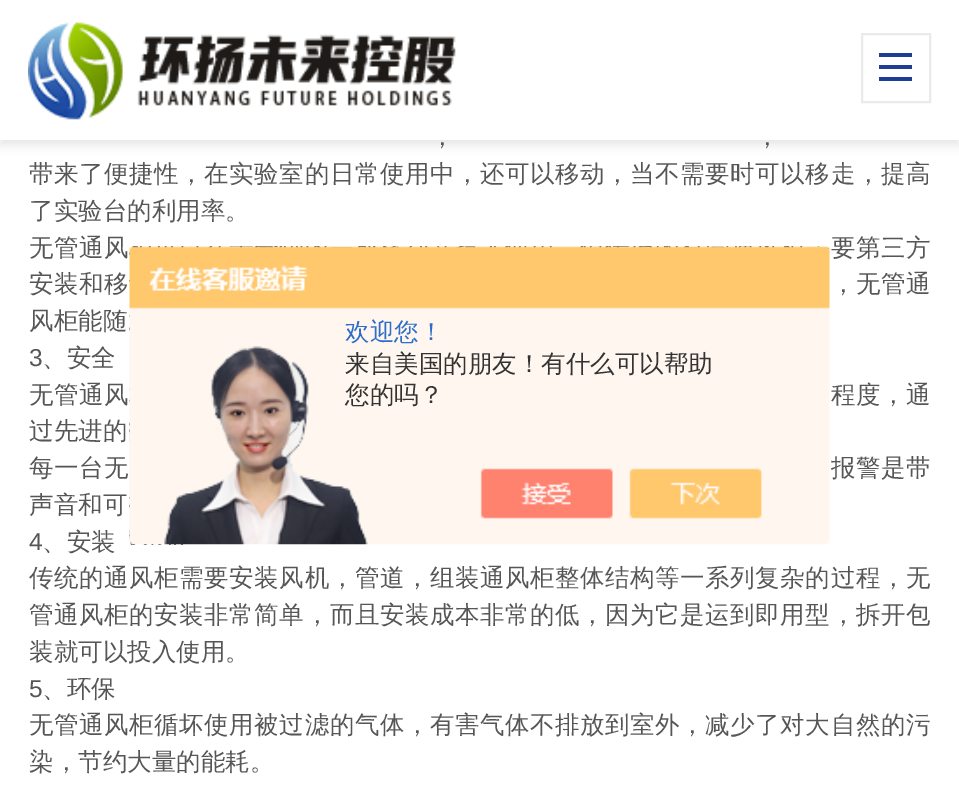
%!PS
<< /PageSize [959 789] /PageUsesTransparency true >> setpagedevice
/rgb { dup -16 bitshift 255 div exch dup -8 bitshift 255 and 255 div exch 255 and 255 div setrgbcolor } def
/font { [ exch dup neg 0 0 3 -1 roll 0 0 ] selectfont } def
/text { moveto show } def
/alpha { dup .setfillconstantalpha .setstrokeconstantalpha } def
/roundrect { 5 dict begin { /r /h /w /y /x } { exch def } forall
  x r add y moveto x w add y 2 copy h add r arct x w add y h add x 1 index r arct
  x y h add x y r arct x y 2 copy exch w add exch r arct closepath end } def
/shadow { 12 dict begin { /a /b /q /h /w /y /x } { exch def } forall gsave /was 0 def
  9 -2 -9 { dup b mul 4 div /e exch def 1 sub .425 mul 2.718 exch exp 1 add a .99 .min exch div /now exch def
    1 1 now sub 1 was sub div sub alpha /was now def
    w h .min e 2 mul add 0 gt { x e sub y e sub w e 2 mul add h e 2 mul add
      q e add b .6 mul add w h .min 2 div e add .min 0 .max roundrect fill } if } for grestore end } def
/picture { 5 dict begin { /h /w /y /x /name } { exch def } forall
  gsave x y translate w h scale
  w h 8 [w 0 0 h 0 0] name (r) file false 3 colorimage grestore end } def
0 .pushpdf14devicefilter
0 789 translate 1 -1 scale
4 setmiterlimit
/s1 { /WenQuanYiZenHei-Medium 24.5 font 16#565656 rgb } def
/s2 { /LiberationSans-Regular 24.5 font 16#565656 rgb } def
/s3 { /WenQuanYiZenHei-Medium 24.5 font 16#2E6EC6 rgb } def
/s4 { /WenQuanYiZenHei-Medium 24.5 font 16#333333 rgb } def
16#FFFFFF rgb
0 0 959 789 rectfill
16#000000 rgb
0 5 959 140 0 5 0.1 shadow
16#FFFFFF rgb
0 0 959 140 rectfill
(pic1.raw) 28 22 428 98 picture
16#EAEAEA rgb
2 setlinewidth
862 34 68 68 rectstroke
16#1E3D95 rgb
879 53 33 4 rectfill
879 65 33 4 rectfill
879 77 33 4 rectfill
/WenQuanYiZenHei-Medium 24.5 font
16#565656 rgb
430 145 moveto 0.55 0 (，) ashow
755 145 moveto 0.55 0 (，) ashow
29 182 moveto 0.55 0 (带来了便捷性，在实验室的日常使用中，还可以移动，当不需要时可以移走，提高) ashow
(了实验台的利用率。) 29 219 text
29 256 moveto 0.55 0 (无管通风) ashow
831 256 moveto 0.55 0 (要第三方) ashow
29 292 moveto 0.55 0 (安装和移) ashow
831 292 moveto 0.55 0 (，无管通) ashow
(风柜能随) 29 329 text
s2
(3) 29 366 text
s1
(、安全) 42 366 text
29 403 moveto 0.55 0 (无管通风) ashow
831 403 moveto 0.55 0 (程度，通) ashow
(过先进的) 29 439 text
29 476 moveto 0.55 0 (每一台无) ashow
831 476 moveto 0.55 0 (报警是带) ashow
(声音和可) 29 513 text
s2
(4) 29 550 text
s1
(、安装) 42 550 text
29 586 moveto 0.55 0 (传统的通风柜需要安装风机，管道，组装通风柜整体结构等一系列复杂的过程，无) ashow
29 623 moveto 0.55 0 (管通风柜的安装非常简单，而且安装成本非常的低，因为它是运到即用型，拆开包) ashow
(装就可以投入使用。) 29 660 text
s2
(5) 29 697 text
s1
(、环保) 42 697 text
29 733 moveto 0.55 0 (无管通风柜循坏使用被过滤的气体，有害气体不排放到室外，减少了对大自然的污) ashow
(染，节约大量的能耗。) 29 770 text
(pic2.raw) 129 246 701 299 picture
s3
(欢迎您！) 345 340 text
s4
(来自美国的朋友！有什么可以帮助) 345 372 text
(您的吗？) 345 403 text
.poppdf14devicefilter showpage
